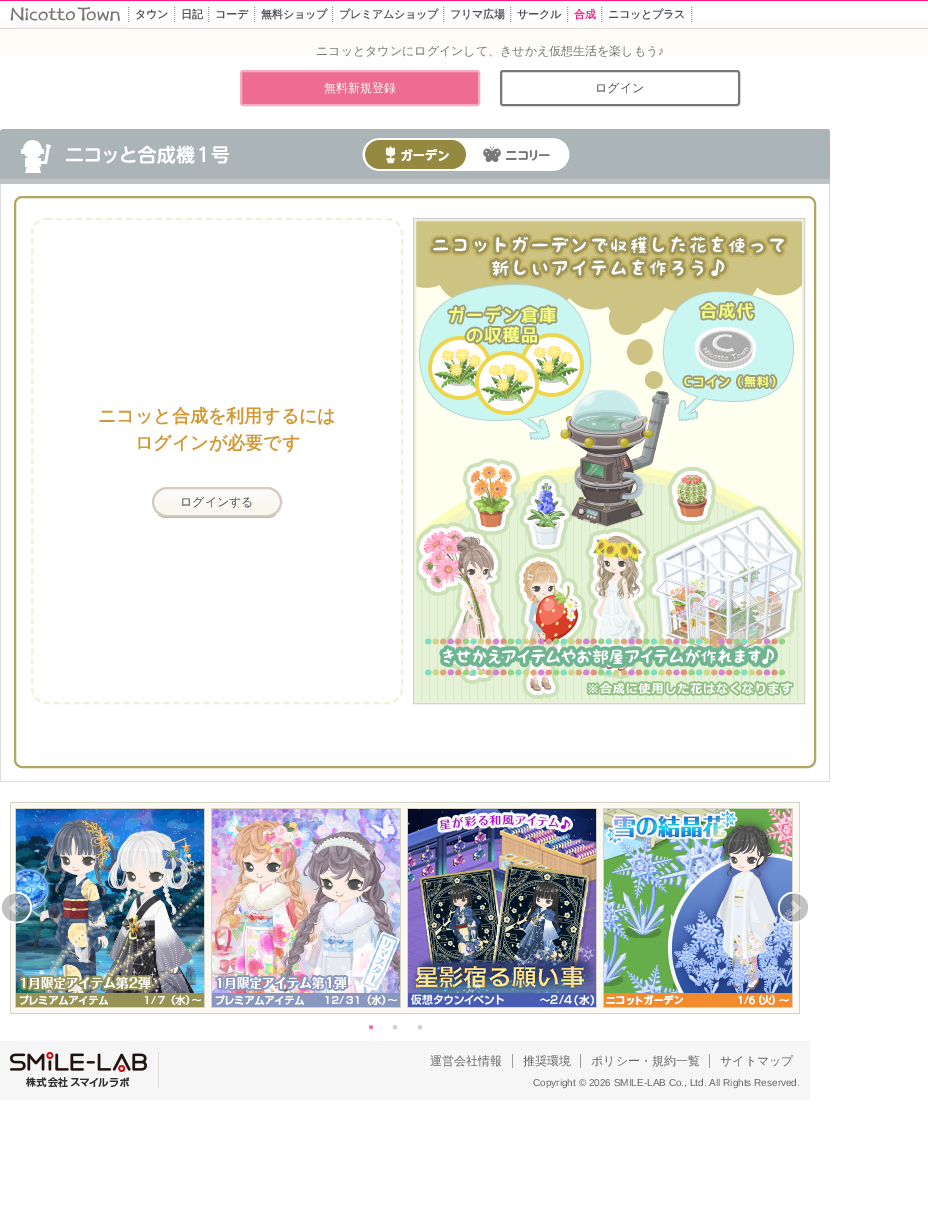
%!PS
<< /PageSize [928 1223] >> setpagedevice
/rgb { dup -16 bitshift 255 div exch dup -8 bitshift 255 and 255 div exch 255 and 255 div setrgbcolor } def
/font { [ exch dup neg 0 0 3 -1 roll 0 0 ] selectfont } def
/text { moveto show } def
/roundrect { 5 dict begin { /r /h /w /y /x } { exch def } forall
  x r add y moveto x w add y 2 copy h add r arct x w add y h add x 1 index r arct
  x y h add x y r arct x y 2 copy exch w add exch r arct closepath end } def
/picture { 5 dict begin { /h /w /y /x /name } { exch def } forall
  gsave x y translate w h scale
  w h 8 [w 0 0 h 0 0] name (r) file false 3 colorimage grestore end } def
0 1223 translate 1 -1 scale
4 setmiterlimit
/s1 { /WenQuanYiZenHei-Medium 12 font 16#777777 rgb } def
/s2 { /LiberationSans-Regular 12 font 16#777777 rgb } def
/s3 { /WenQuanYiZenHei-Medium 12 font 16#FFFFFF rgb } def
/s4 { /WenQuanYiZenHei-Medium 12 font 16#4D5156 rgb } def
/s5 { /WenQuanYiZenHei-Bold 18 font 16#D39832 rgb } def
/s6 { /LiberationSans-Regular 10 font 16#ED7798 rgb } def
/s7 { /LiberationSans-Regular 10 font 16#CCCCCC rgb } def
/s8 { /WenQuanYiZenHei-Medium 12 font 16#666666 rgb } def
/s9 { /LiberationSans-Regular 10 font 16#666666 rgb } def
16#FFFFFF rgb
0 0 928 1223 rectfill
(pic1.raw) 0 0 928 56 picture
(pic2.raw) 10 7 110 14 picture
16#969696 rgb
[1 1] 0 setdash
128.5 7 moveto 128.5 22 lineto 174.5 7 moveto 174.5 22 lineto stroke
/WenQuanYiZenHei-Bold 11 font
16#4D5156 rgb
135 18 moveto -0.25 0 (タウン) ashow
16#969696 rgb
208.5 7 moveto 208.5 22 lineto stroke
16#4D5156 rgb
181 18 moveto -0.25 0 (日記) ashow
16#969696 rgb
254.5 7 moveto 254.5 22 lineto stroke
16#4D5156 rgb
215 18 moveto -0.25 0 (コーデ) ashow
16#969696 rgb
332.5 7 moveto 332.5 22 lineto stroke
16#4D5156 rgb
261 18 moveto -0.25 0 (無料ショップ) ashow
16#969696 rgb
443.5 7 moveto 443.5 22 lineto stroke
16#4D5156 rgb
339 18 moveto -0.25 0 (プレミアムショップ) ashow
16#969696 rgb
510.5 7 moveto 510.5 22 lineto stroke
16#4D5156 rgb
450 18 moveto -0.25 0 (フリマ広場) ashow
16#969696 rgb
567.5 7 moveto 567.5 22 lineto stroke
16#4D5156 rgb
517 18 moveto -0.25 0 (サークル) ashow
16#969696 rgb
601.5 7 moveto 601.5 22 lineto stroke
16#FF1985 rgb
574 18 moveto -0.25 0 (合成) ashow
16#969696 rgb
691.5 7 moveto 691.5 22 lineto stroke
16#4D5156 rgb
608 18 moveto -0.25 0 (ニコッとプラス) ashow
s1
(ニコッとタウンにログインして、きせかえ仮想生活を楽しもう) 316 55 text
s2
(♪) 658 55 text
16#ED6C8F rgb
241 71 238 34 2 roundrect gsave fill grestore
16#F4ACC0 rgb
2 setlinewidth
[] 0 setdash
stroke
s3
(無料新規登録) 324 92 text
16#777777 rgb
501 71 238 34 2 roundrect stroke
s4
(ログイン) 595 92 text
16#ABB5B8 rgb
3 129 moveto 827 129 lineto 828.5 129 830 130.5 830 132 curveto 830 184 lineto 0 184 lineto 0 132 lineto 0 130.5 1.5 129 3 129 curveto closepath fill
16#BCC3C4 rgb
0 179 830 5 rectfill
(pic3.raw) 21 140 209 33 picture
(pic4.raw) 362 138 208 33 picture
16#DEDEDE rgb
829 184 1 598 rectfill
0 781 830 1 rectfill
0 184 1 598 rectfill
16#B2A663 rgb
15 197 800 570 7 roundrect stroke
16#E9F5D9 rgb
[6 4] 0 setdash
46 219 moveto 388 219 lineto 395.5 219 402 225.5 402 233 curveto 402 689 lineto 402 696.5 395.5 703 388 703 curveto 46 703 lineto 38.5 703 32 696.5 32 689 curveto 32 233 lineto 32 225.5 38.5 219 46 219 curveto closepath stroke
s5
(ニコッと合成を利用するには) 98 422 text
(ログインが必要です) 135 449 text
16#B3AD9E rgb
152 502 moveto 152 503 lineto 152 511 159 518 167 518 curveto 267 518 lineto 275 518 282 511 282 503 curveto 282 502 lineto 282 511 275 517 267 517 curveto 167 517 lineto 159 517 152 511 152 502 curveto closepath fill
gsave
152 487 130 30 15 roundrect clip newpath
gsave 152 489 moveto 282 489 lineto 282 515 lineto 152 515 lineto closepath clip newpath
<< /ShadingType 2 /ColorSpace /DeviceRGB /Coords [217 489 217 515] /Extend [true true] /Function << /FunctionType 2 /Domain [0 1] /C0 [0.988 0.984 0.973] /C1 [0.973 0.965 0.933] /N 1 >> >> shfill grestore
grestore
16#D3CCBD rgb
[] 0 setdash
153 488 128 28 14 roundrect stroke
s4
(ログインする) 180 506 text
16#CDCDCC rgb
1 setlinewidth
413.5 218.5 391 485 rectstroke
(pic5.raw) 416 221 386 480 picture
16#EEEEDC rgb
2 setlinewidth
415 220 388 482 rectstroke
16#F6F6F6 rgb
0 1041 810 59 rectfill
(pic6.raw) 10 802 790 212 picture
(pic7.raw) 15 808 190 200 picture
(pic8.raw) 211 808 190 200 picture
(pic9.raw) 407 808 190 200 picture
(pic10.raw) 603 808 190 200 picture
(pic11.raw) 1 892 31 31 picture
(pic12.raw) 778 892 31 31 picture
s6
(●) 368 1030 text
s7
(●) 392 1030 text
(●) 417 1030 text
16#DDDDDD rgb
158 1052 1 36 rectfill
(pic13.raw) 10 1052 137 36 picture
s8
(運営会社情報) 430 1065 text
(推奨環境) 523 1065 text
16#999999 rgb
512 1054 1 14 rectfill
s8
(ポリシー・規約一覧) 591 1065 text
16#999999 rgb
580 1054 1 14 rectfill
s8
(サイトマップ) 720 1065 text
16#999999 rgb
709 1054 1 14 rectfill
s9
(Copyright © 2026 SMILE-LAB Co., Ltd. All Rights Reserved.) 533 1086 text
showpage
